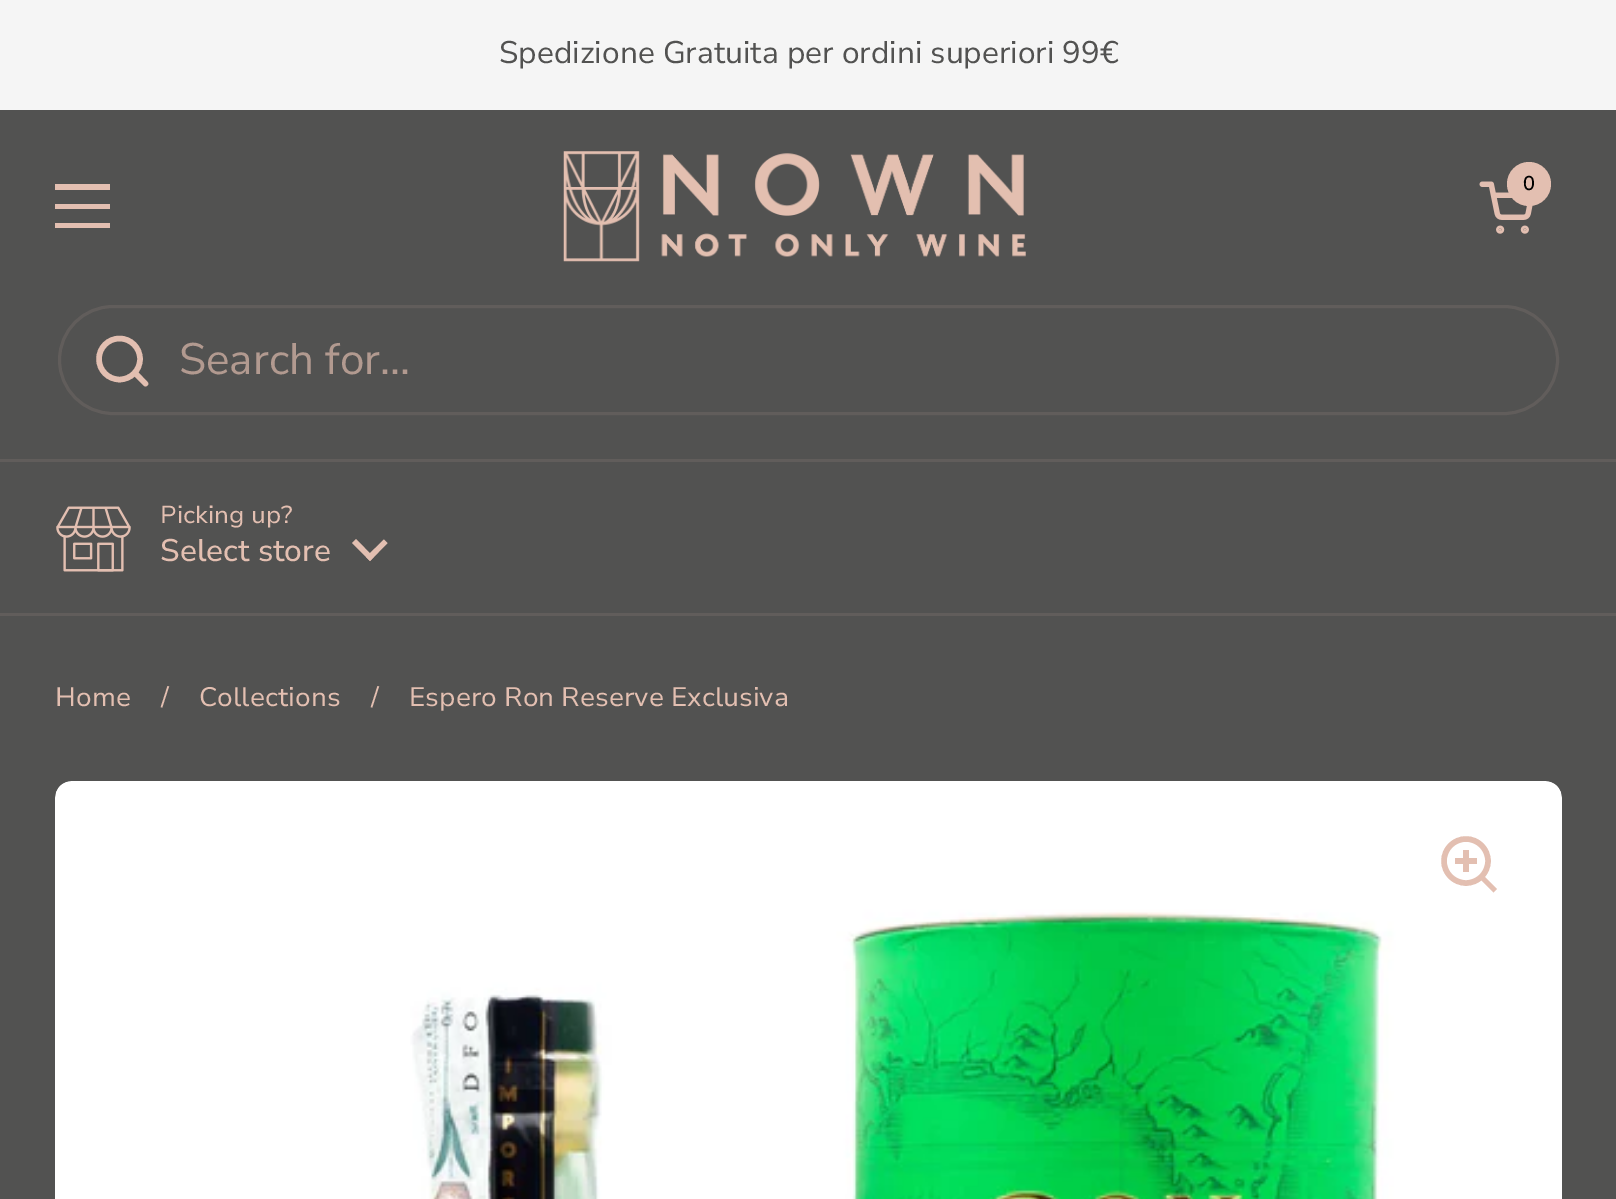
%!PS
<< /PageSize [1616 1199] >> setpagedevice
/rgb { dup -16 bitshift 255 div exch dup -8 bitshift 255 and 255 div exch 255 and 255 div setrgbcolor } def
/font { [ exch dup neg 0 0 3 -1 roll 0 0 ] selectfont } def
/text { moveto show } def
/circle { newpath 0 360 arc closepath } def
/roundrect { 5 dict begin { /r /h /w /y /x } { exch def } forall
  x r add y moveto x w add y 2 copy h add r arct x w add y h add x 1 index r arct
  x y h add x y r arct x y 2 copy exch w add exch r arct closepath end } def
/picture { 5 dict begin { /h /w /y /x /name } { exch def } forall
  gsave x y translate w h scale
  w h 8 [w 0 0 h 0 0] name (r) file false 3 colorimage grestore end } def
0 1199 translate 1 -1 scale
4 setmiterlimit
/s1 { /NunitoSans-Regular 31.25 font 16#525251 rgb } def
/s2 { /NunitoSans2-Medium 20 font 16#000000 rgb } def
/s3 { /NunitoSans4-Regular 44 font 16#B29A90 rgb } def
/s4 { /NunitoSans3-Regular 24.5 font 16#E3BFB1 rgb } def
/s5 { /NunitoSans-Medium 31.25 font 16#E3BFB1 rgb } def
/s6 { /NunitoSans2-Regular 26.75 font 16#E3BFB1 rgb } def
16#525251 rgb
0 0 1616 1199 rectfill
16#F5F5F5 rgb
0 0 1616 110 rectfill
s1
(Spedizione Gratuita per ordini superiori 99€) 499 63 text
16#E3BFB1 rgb
55 184 55 6 rectfill
55 204 55 5 rectfill
55 223 55 5 rectfill
(pic1.raw) 563 151 463 111 picture
(pic2.raw) 1479 181 54 53 picture
1529 184 22 circle fill
s2
(0) 1523 190 text
16#615D5B rgb
0 459 1616 3 rectfill
3 setlinewidth
59.5 306.5 1498 107 53.5 roundrect stroke
16#E3BFB1 rgb
5.5 setlinewidth
119.5 359 20.5 circle stroke
138 372 moveto 136 370 lineto 132 374 lineto 134 376 lineto closepath 143.5 385.5 moveto 146 388 150 384.5 147.5 382 curveto closepath 134 376 moveto 143.5 385.5 lineto 147.5 382 lineto 138 372 lineto closepath fill
s3
(Search for...) 179 374 text
16#615D5B rgb
0 613 1616 3 rectfill
(pic3.raw) 56 506 75 66 picture
s4
(Picking up?) 160 523 text
s5
(Select store) 160 561 text
356 539 moveto 373.5 557 lineto 370 561 lineto 352 543 lineto closepath fill
387.5 543 moveto 370 561 lineto 366 557 lineto 384 539.5 lineto closepath fill
s6
(Home) 55 706 text
(/) 161 706 text
(Collections) 199 706 text
(/) 371 706 text
(Espero Ron Reserve Exclusiva) 409 706 text
(pic4.raw) 55 781 1507 418 picture
1466 861 22 circle stroke
1463 850 6 22 rectfill
1455 858 22 6 rectfill
1480.5 879.5 moveto 1484 876 lineto 1497 889 lineto 1493.5 892.5 lineto closepath fill
showpage
